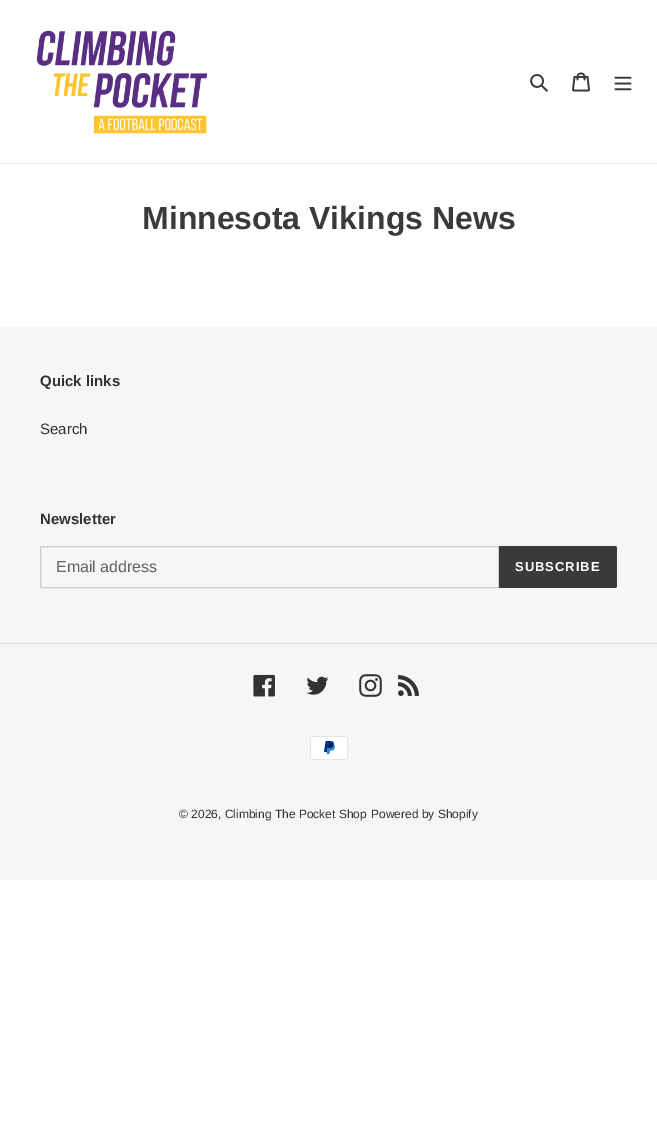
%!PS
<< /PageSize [657 1125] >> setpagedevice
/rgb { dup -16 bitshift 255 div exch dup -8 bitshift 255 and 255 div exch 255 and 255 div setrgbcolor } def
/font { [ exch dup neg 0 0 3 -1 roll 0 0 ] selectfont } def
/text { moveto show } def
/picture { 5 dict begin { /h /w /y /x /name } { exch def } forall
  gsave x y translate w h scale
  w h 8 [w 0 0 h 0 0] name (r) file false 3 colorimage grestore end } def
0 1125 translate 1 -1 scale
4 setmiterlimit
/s1 { /LiberationSans-Bold 32 font 16#3A3A3A rgb } def
/s2 { /LiberationSans-Bold 15 font 16#333232 rgb } def
/s3 { /LiberationSans-Regular 15 font 16#333232 rgb } def
/s4 { /LiberationSans-Regular 16 font 16#626262 rgb } def
/s5 { /LiberationSans-Regular 12 font 16#333232 rgb } def
16#FFFFFF rgb
0 0 657 1125 rectfill
16#EBEBEB rgb
0 163 657 1 rectfill
(pic1.raw) 36 30 172 104 picture
(pic2.raw) 530 74 18 18 picture
(pic3.raw) 572 72 18 20 picture
(pic4.raw) 614 76 18 15 picture
s1
(Minnesota Vikings News) 142 229 text
16#F6F6F6 rgb
0 327 657 553 rectfill
s2
(Quick links) 40 386 text
s3
(Search) 40 434 text
s2
(Newsletter) 40 524 text
16#CCCCCC rgb
42 546.5 moveto 498.5 546.5 lineto 498.5 587.5 lineto 42 587.5 lineto 41 587.5 40.5 587 40.5 586 curveto 40.5 548 lineto 40.5 547 41 546.5 42 546.5 curveto closepath stroke
s4
(Email address) 56 572 text
16#3A3A3A rgb
499 546 moveto 615 546 lineto 616 546 617 547 617 548 curveto 617 586 lineto 617 587 616 588 615 588 curveto 499 588 lineto closepath fill
/LiberationSans-Bold 13 font
16#FFFFFF rgb
515 571 moveto 1 0 (SUBSCRIBE) ashow
16#DDDDDD rgb
0 643 657 1 rectfill
(pic5.raw) 253 674 22 23 picture
(pic6.raw) 306 676 23 19 picture
(pic7.raw) 359 674 23 23 picture
(pic8.raw) 398 675 21 21 picture
(pic9.raw) 310 736 38 24 picture
s5
(© 2026, Climbing The Pocket Shop) 179 818 text
(Powered by Shopify) 371 818 text
showpage
